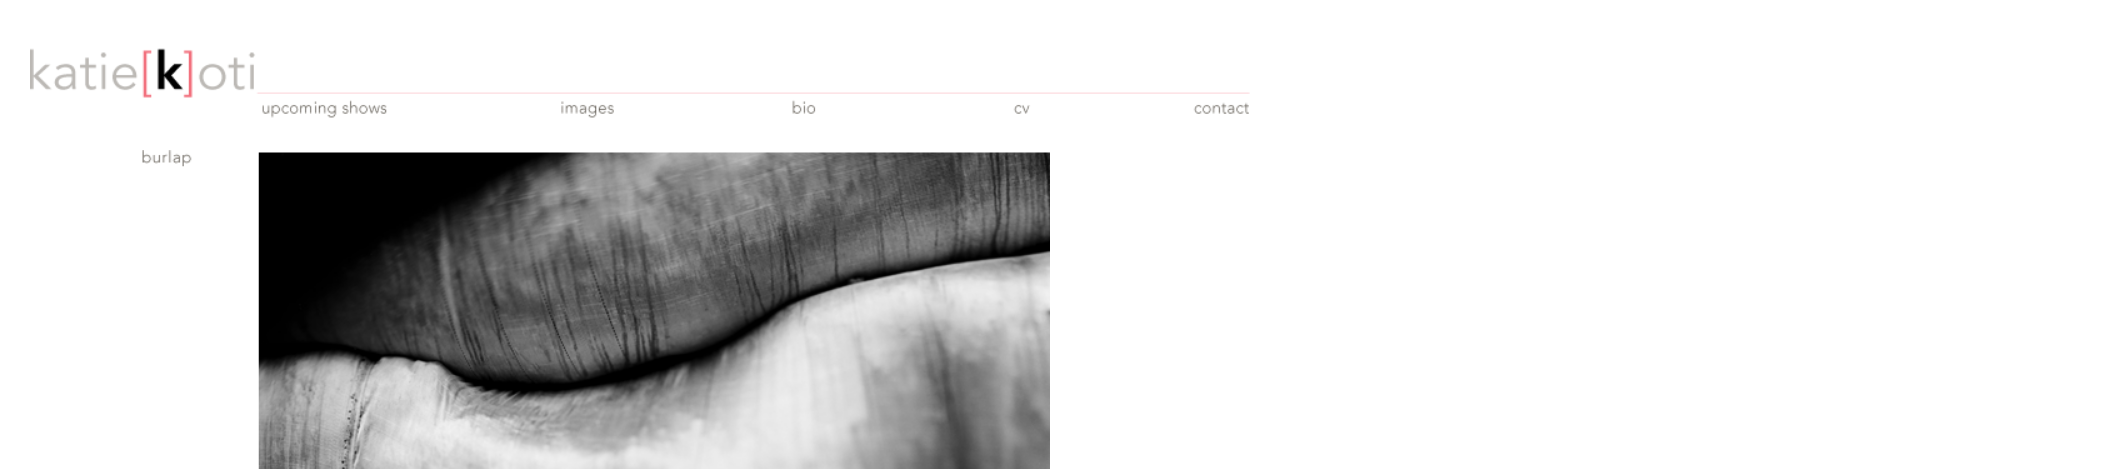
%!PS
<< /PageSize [2104 469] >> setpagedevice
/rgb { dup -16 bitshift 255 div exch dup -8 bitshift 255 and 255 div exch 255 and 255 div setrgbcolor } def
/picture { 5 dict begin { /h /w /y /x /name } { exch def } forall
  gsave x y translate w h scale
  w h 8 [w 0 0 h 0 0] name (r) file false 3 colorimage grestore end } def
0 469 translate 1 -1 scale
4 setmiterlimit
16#FFFFFF rgb
0 0 2104 469 rectfill
(pic1.raw) 30 48 1220 70 picture
(pic2.raw) 142 150 50 17 picture
(pic3.raw) 258 152 792 317 picture
showpage
